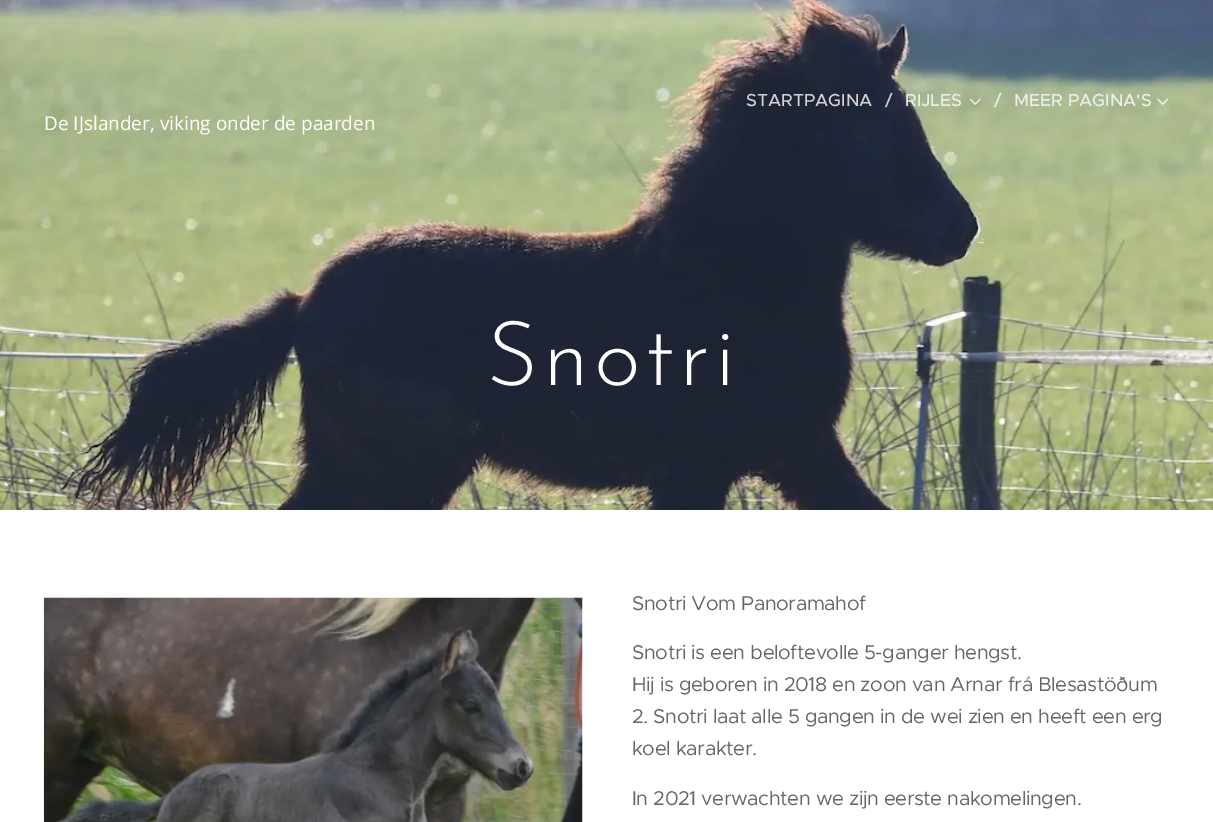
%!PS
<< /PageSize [1213 822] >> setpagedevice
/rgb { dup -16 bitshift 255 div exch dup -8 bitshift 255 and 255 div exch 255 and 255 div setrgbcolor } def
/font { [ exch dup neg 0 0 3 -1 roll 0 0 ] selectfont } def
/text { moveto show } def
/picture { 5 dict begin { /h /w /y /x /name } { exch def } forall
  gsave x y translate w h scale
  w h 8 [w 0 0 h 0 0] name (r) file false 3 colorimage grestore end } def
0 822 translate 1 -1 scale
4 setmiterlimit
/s1 { /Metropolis-Medium 17.5 font 16#D2D3D7 rgb } def
/s2 { /Metropolis-Medium 17.5 font 16#ECEFE8 rgb } def
/s3 { /OpenSans-Regular 19 font 16#FFFFFF rgb } def
16#FFFFFF rgb
0 0 1213 822 rectfill
(pic3.raw) 0 0 1213 510 picture
s1
(STARTPAGINA) 746 106 text
(/) 885 106 text
s2
(RIJLES) 905 106 text
(/) 994 106 text
(pic1.raw) 969 98 12 7 picture
(MEER PAGINA'S) 1014 106 text
(pic2.raw) 1157 98 12 7 picture
s3
(De IJslander, viking onder de paarden) 44 130 text
/JosefinSans-Light 90 font
486 385 moveto 4.75 0 (Snotri) ashow
(pic4.raw) 43 597 540 225 picture
/Metropolis-Regular 20 font
16#666666 rgb
632 610 moveto -0.4 0 (Snotri Vom Panoramahof) ashow
632 659 moveto -0.4 0 (Snotri is een beloftevolle 5-ganger hengst.) ashow
632 691 moveto -0.4 0 (Hij is geboren in 2018 en zoon van Arnar frá Blesastöðum) ashow
632 723 moveto -0.4 0 (2. Snotri laat alle 5 gangen in de wei zien en heeft een erg) ashow
632 755 moveto -0.4 0 (koel karakter.) ashow
632 805 moveto -0.4 0 (In 2021 verwachten we zijn eerste nakomelingen.) ashow
showpage
